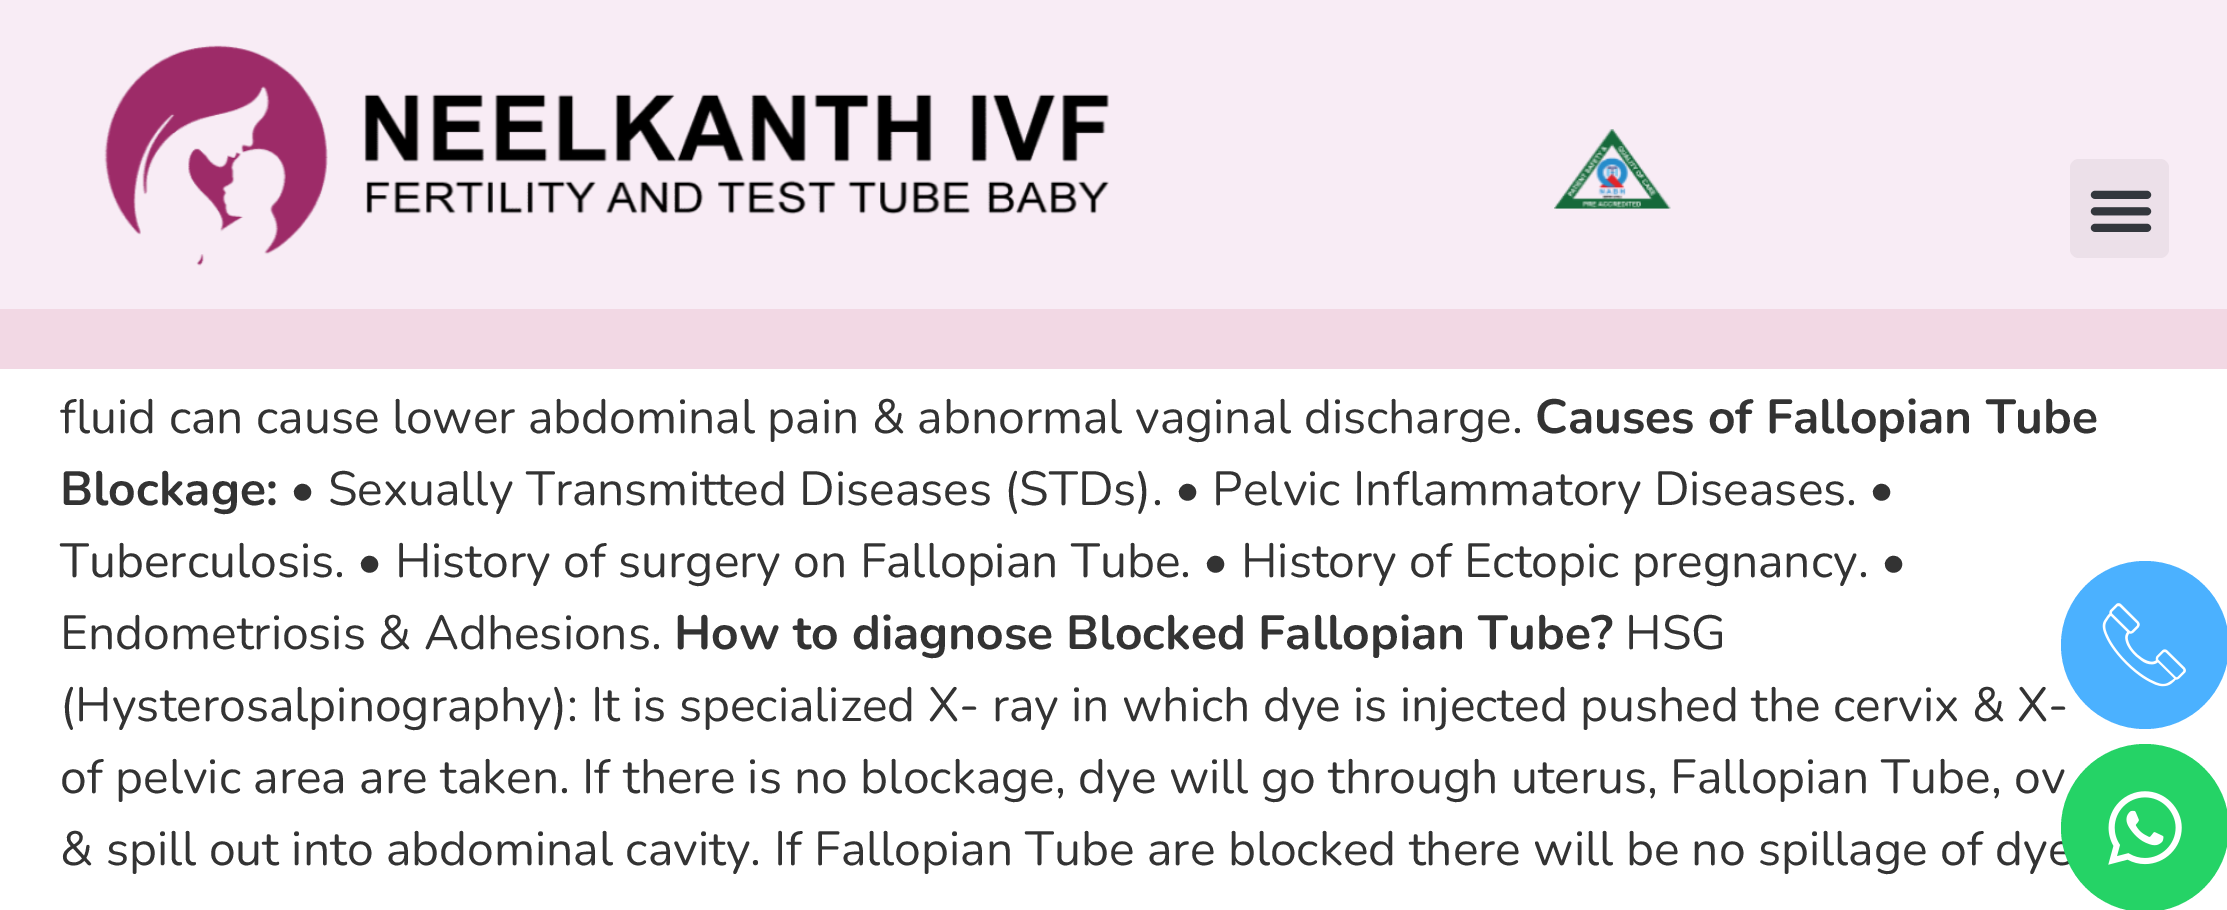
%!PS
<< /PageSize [2227 910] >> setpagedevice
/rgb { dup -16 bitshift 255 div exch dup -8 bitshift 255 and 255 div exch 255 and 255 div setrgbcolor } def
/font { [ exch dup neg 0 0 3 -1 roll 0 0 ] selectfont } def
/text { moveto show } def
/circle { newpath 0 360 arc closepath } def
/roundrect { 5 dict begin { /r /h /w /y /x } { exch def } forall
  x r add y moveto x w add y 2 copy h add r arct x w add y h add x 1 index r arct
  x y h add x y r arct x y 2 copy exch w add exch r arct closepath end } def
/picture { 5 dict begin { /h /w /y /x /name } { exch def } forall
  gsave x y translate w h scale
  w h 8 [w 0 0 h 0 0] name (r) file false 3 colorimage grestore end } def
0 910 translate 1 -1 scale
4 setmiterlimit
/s1 { /Nunito-Regular 48 font 16#333333 rgb } def
/s2 { /Nunito-Bold 48 font 16#333333 rgb } def
16#FFFFFF rgb
0 0 2227 910 rectfill
16#F8ECF5 rgb
0 0 2227 309 rectfill
(pic1.raw) 104 45 1005 221 picture
(pic2.raw) 1554 129 117 80 picture
16#F2D8E4 rgb
0 309 2227 60 rectfill
16#ECE0E9 rgb
2070 159 99 99 9 roundrect fill
(pic3.raw) 2090 190 62 42 picture
s1
(\(Hysterosalpinography\): It is specialized X- ray in which dye is injected pushed the cervix & X-) 60 721 text
16#4BB1FF rgb
2145 645 84 circle fill
(pic4.raw) 2102 603 84 84 picture
s1
(of pelvic area are taken. If there is no blockage, dye will go through uterus, Fallopian Tube, ov) 60 793 text
(& spill out into abdominal cavity. If Fallopian Tube are blocked there will be no spillage of dye) 60 865 text
16#25D366 rgb
2145 828 84 circle fill
(pic5.raw) 2108 791 74 74 picture
s1
(fluid can cause lower abdominal pain & abnormal vaginal discharge.) 60 433 text
s2
(Causes of Fallopian Tube) 1535 433 text
(Blockage:) 60 505 text
s1
(• Sexually Transmitted Diseases \(STDs\). • Pelvic Inflammatory Diseases. •) 290 505 text
(Tuberculosis. • History of surgery on Fallopian Tube. • History of Ectopic pregnancy. •) 60 577 text
(Endometriosis & Adhesions.) 60 649 text
s2
(How to diagnose Blocked Fallopian Tube?) 674 649 text
s1
(HSG) 1625 649 text
showpage
